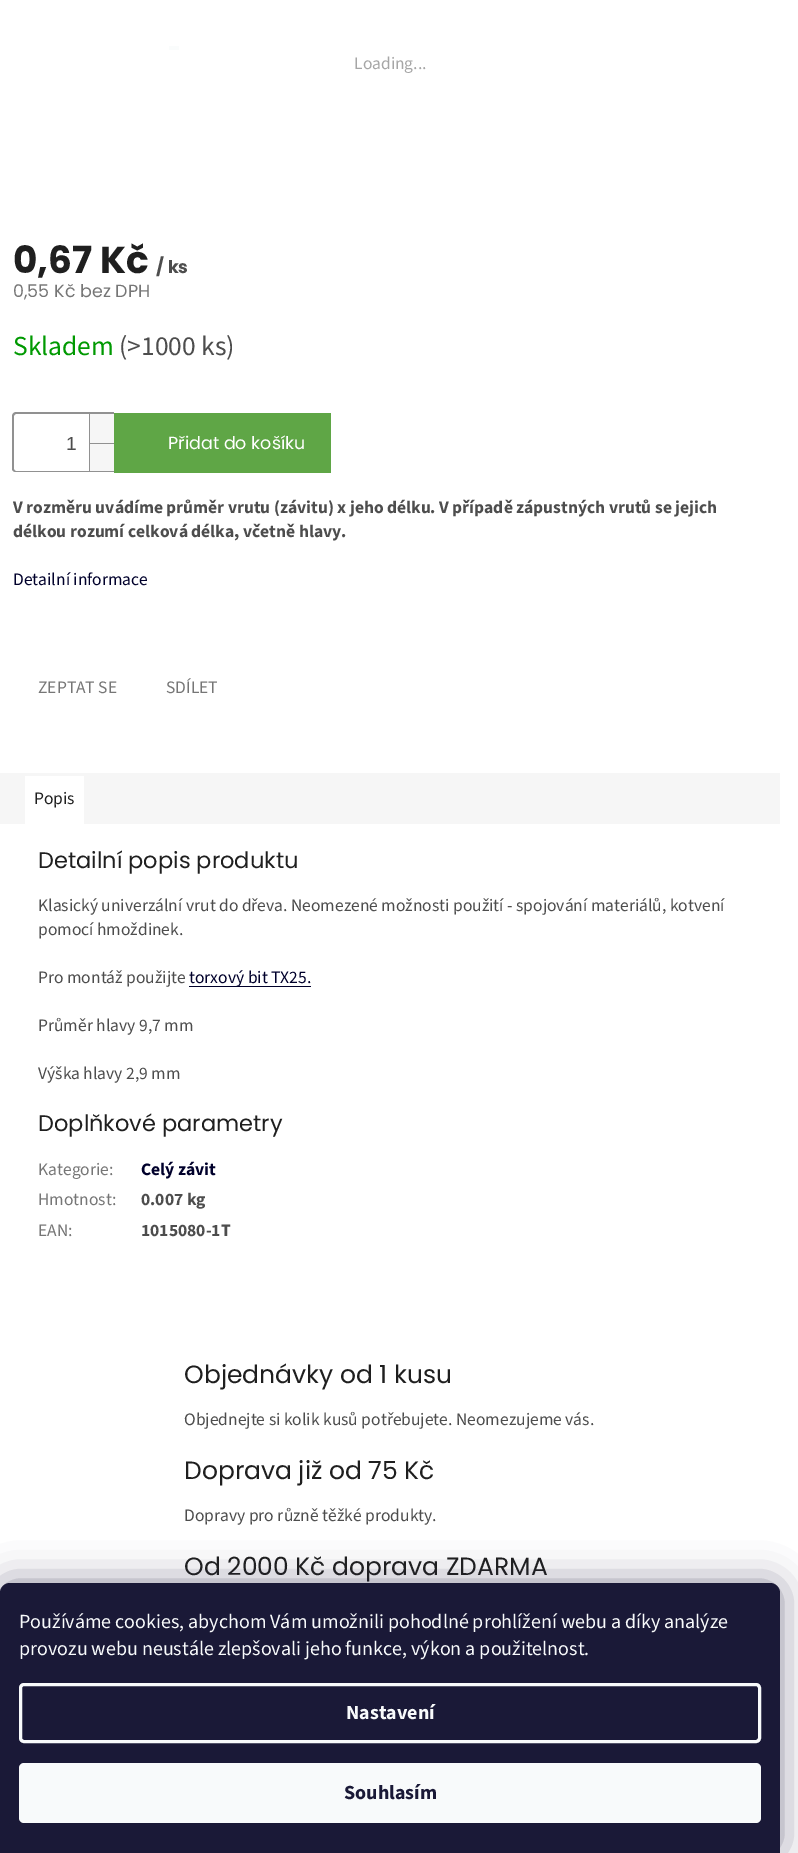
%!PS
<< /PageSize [798 1853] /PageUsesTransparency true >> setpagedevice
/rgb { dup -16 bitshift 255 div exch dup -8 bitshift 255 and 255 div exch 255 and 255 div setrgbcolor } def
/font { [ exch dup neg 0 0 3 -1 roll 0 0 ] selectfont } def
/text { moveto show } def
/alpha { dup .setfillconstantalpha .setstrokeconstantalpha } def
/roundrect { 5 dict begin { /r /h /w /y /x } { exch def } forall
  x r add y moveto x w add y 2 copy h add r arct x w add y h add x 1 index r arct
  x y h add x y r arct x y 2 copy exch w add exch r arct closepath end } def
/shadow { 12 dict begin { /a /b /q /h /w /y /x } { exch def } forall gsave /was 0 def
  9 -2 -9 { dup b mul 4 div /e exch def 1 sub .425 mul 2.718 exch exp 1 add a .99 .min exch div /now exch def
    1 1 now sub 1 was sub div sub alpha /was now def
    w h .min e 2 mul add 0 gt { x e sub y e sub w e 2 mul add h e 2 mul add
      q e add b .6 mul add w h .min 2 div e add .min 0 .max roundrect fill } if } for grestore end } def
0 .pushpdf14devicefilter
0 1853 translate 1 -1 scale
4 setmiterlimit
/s1 { /SourceSans3-Regular 17.5 font 16#A6A6A6 rgb } def
/s2 { /Poppins-Bold 37.5 font 16#1F1F1F rgb } def
/s3 { /Poppins-Bold 17.5 font 16#4D4D4D rgb } def
/s4 { /Poppins-Regular 17.5 font 16#767676 rgb } def
/s5 { /SourceSans3-Regular 27.5 font 16#009901 rgb } def
/s6 { /SourceSans3-Regular 27.5 font 16#4D4D4D rgb } def
/s7 { /LiberationSans-Regular 19 font 16#4D4D4D rgb } def
/s8 { /Poppins-Regular 17.5 font 16#FFFFFF rgb } def
/s9 { /SourceSans3-Bold 17.5 font 16#4D4D4D rgb } def
/s10 { /SourceSans3-Regular 17.5 font 16#00002B rgb } def
/s11 { /SourceSans3-Regular 17.5 font 16#767676 rgb } def
/s12 { /SourceSans3-Regular 17.5 font 16#1F1F1F rgb } def
/s13 { /Poppins-Regular 22.5 font 16#1F1F1F rgb } def
/s14 { /SourceSans3-Regular 17.5 font 16#4D4D4D rgb } def
/s15 { /SourceSans3-Bold 17.5 font 16#00002B rgb } def
/s16 { /Poppins-Regular 25 font 16#1F1F1F rgb } def
/s17 { /SourceSans3-Regular 20 font 16#F8FAFB rgb } def
/s18 { /SourceSans3-Bold 20 font 16#F8FAFB rgb } def
/s19 { /SourceSans3-Bold 20 font 16#1A1937 rgb } def
16#FFFFFF rgb
0 0 798 1853 rectfill
16#FAFCFC rgb
169 46 10 4 rectfill
s1
(Loading...) 354 69 text
s2
(0,67 Kč) 13 273 text
s3
(/ ks) 156 273 text
s4
(0,55 Kč bez DPH) 13 297 text
s5
(Skladem) 13 355 text
s6
(\(>1000 ks\)) 119 355 text
16#919191 rgb
16 412 moveto 114 412 lineto 114 472 lineto 16 472 lineto 14 472 12 471 12 469 curveto 12 416 lineto 12 414 14 412 16 412 curveto closepath 16 414 moveto 114 414 lineto 114 471 lineto 16 471 lineto 15 471 14 470 14 469 curveto 14 416 lineto 14 415 15 414 16 414 curveto closepath eofill
s7
(1) 66 450 text
16#F6F6F6 rgb
90 414 24 29 rectfill
16#919191 rgb
89 414 1 29 rectfill
16#F6F6F6 rgb
90 444 24 27 rectfill
16#919191 rgb
89 443 25 1 rectfill
89 443 1 28 rectfill
16#5FA646 rgb
114 413 217 60 rectfill
s8
(Přidat do košíku) 168 449 text
s9
(V rozměru uvádíme průměr vrutu \(závitu\) x jeho délku. V případě zápustných vrutů se jejich) 13 513 text
(délkou rozumí celková délka, včetně hlavy.) 13 537 text
s10
(Detailní informace) 13 585 text
s11
(ZEPTAT SE) 38 693 text
(SDÍLET) 166 693 text
16#F6F6F6 rgb
0 773 780 51 rectfill
16#FFFFFF rgb
25 776 59 48 rectfill
s12
(Popis) 34 804 text
s13
(Detailní popis produktu) 38 868 text
s14
(Klasický univerzální vrut do dřeva. Neomezené možnosti použití - spojování materiálů, kotvení) 38 911 text
(pomocí hmoždinek.) 38 935 text
(Pro montáž použijte) 38 983 text
16#00002B rgb
189 986 122 1 rectfill
(torxový bit TX25.) 189 983 text
s14
(Průměr hlavy 9,7 mm) 38 1031 text
(Výška hlavy 2,9 mm) 38 1079 text
s13
(Doplňkové parametry) 38 1131 text
s11
(Kategorie:) 38 1175 text
s15
(Celý závit) 141 1175 text
s11
(Hmotnost:) 38 1205 text
s9
(0.007 kg) 141 1205 text
s11
(EAN:) 38 1236 text
s9
(1015080-1T) 141 1236 text
s16
(Objednávky od 1 kusu) 184 1383 text
s14
(Objednejte si kolik kusů potřebujete. Neomezujeme vás.) 184 1425 text
s16
(Doprava již od 75 Kč) 184 1479 text
s14
(Dopravy pro různě těžké produkty.) 184 1521 text
s16
(Od 2000 Kč doprava ZDARMA) 184 1575 text
16#1B1939 rgb
0 1583 780 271 10 19 0.5 shadow
16#1A1937 rgb
10 1583 moveto 770 1583 lineto 775.5 1583 780 1587.5 780 1593 curveto 780 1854 lineto 0 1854 lineto 0 1593 lineto 0 1587.5 4.5 1583 10 1583 curveto closepath fill
s17
(Používáme cookies, abychom Vám umožnili pohodlné prohlížení webu a díky analýze) 19 1628 text
(provozu webu neustále zlepšovali jeho funkce, výkon a použitelnost.) 19 1655 text
3 setlinewidth
20.5 1684.5 739 57 3.5 roundrect stroke
s18
(Nastavení) 346 1719 text
19 1763 742 60 5 roundrect fill
s19
(Souhlasím) 344 1799 text
.poppdf14devicefilter showpage
